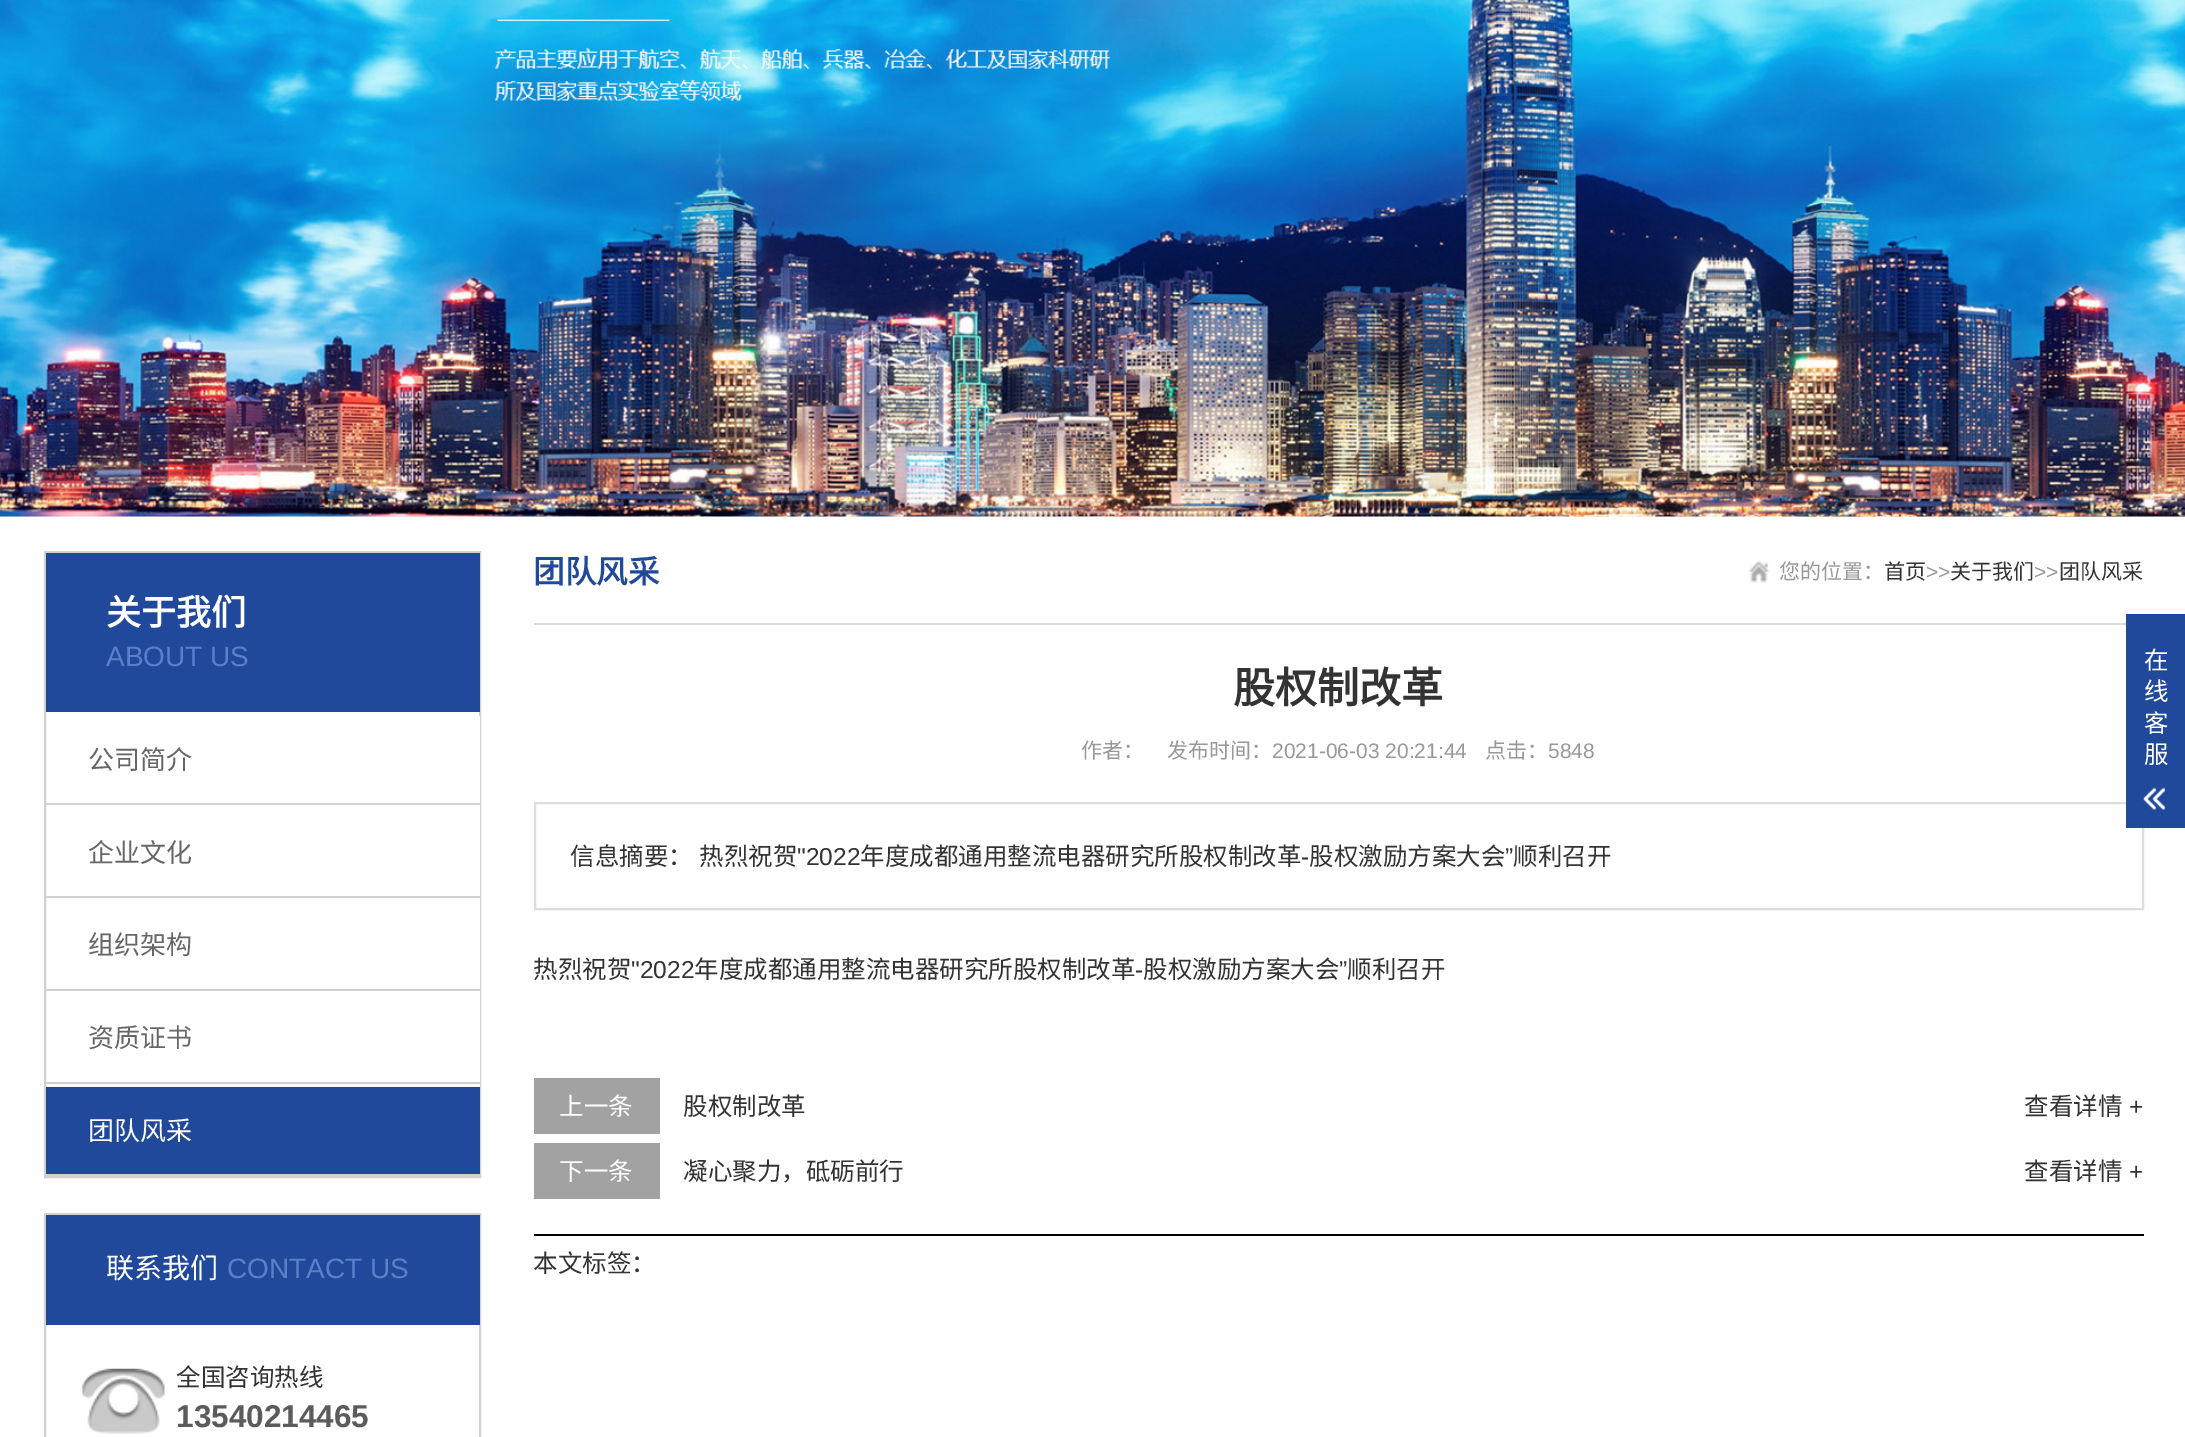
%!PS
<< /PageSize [2185 1437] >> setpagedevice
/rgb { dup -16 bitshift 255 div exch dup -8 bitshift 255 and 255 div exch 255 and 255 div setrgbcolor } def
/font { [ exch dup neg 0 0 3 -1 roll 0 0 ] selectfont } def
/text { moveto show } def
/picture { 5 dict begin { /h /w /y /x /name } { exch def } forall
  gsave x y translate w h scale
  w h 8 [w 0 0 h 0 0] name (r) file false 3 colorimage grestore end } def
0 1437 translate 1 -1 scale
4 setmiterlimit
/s1 { /NotoSansCJKSC-Bold 35 font 16#FFFFFF rgb } def
/s2 { /LiberationSans-Regular 28 font 16#5B7FC8 rgb } def
/s3 { /NotoSansCJKSC-Regular 26 font 16#666666 rgb } def
/s4 { /NotoSansCJKSC-Regular 26 font 16#FFFFFF rgb } def
/s5 { /NotoSansCJKSC-Regular 28 font 16#FFFFFF rgb } def
/s6 { /NotoSansCJKSC-Regular 24.5 font 16#333333 rgb } def
/s7 { /LiberationSans-Bold 31.5 font 16#5B5B5B rgb } def
/s8 { /NotoSansCJKSC-Bold 31.5 font 16#21499B rgb } def
/s9 { /NotoSansCJKSC-Regular 21 font 16#999999 rgb } def
/s10 { /NotoSansCJKSC-Regular 21 font 16#333333 rgb } def
/s11 { /LiberationSans-Regular 21 font 16#999999 rgb } def
/s12 { /NotoSansCJKSC-Bold 42 font 16#333333 rgb } def
/s13 { /LiberationSans-Regular 24.5 font 16#333333 rgb } def
/s14 { /NotoSansCJKSC-Regular 24.5 font 16#FFFFFF rgb } def
16#FFFFFF rgb
0 0 2185 1437 rectfill
(pic1.raw) 0 0 2185 517 picture
16#D1D1D1 rgb
2 setlinewidth
45 552 435 625 rectstroke
16#21499B rgb
46 553 434 159 rectfill
s1
(关于我们) 106 625 text
s2
(ABOUT US) 106 666 text
16#FFFFFF rgb
479 716 1 371 rectfill
16#D1D1D1 rgb
46 803 434 2 rectfill
s3
(公司简介) 88 769 text
16#D1D1D1 rgb
46 896 434 2 rectfill
s3
(企业文化) 88 862 text
16#D1D1D1 rgb
46 989 434 2 rectfill
s3
(组织架构) 88 954 text
16#D1D1D1 rgb
46 1082 434 2 rectfill
s3
(资质证书) 88 1047 text
16#D1D1D1 rgb
46 1174 434 2 rectfill
16#21499B rgb
46 1087 434 87 rectfill
s4
(团队风采) 88 1140 text
16#D1D1D1 rgb
45 1214 435 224 rectstroke
16#21499B rgb
46 1215 434 110 rectfill
s5
(联系我们) 106 1278 text
s2
(CONTACT US) 227 1278 text
(pic2.raw) 82 1368 83 66 picture
s6
(全国咨询热线) 176 1386 text
s7
(13540214465) 176 1427 text
16#DDDDDD rgb
534 623 1592 2 rectfill
s8
(团队风采) 533 583 text
(pic3.raw) 1748 561 22 22 picture
s9
(您的位置：) 1779 579 text
s10
(首页) 1884 579 text
s11
(>>) 1926 579 text
s10
(关于我们) 1950 579 text
s11
(>>) 2034 579 text
s10
(团队风采) 2059 579 text
s12
(股权制改革) 1233 703 text
s9
(作者：) 1081 758 text
(发布时间：) 1167 758 text
s11
(2021-06-03 20:21:44) 1272 758 text
s9
(点击：) 1485 758 text
s11
(5848) 1548 758 text
16#DDDDDD rgb
535 803 1608 106 rectstroke
s6
(信息摘要：) 570 865 text
(热烈祝贺) 699 865 text
s13
("2022) 797 865 text
s6
(年度成都通用整流电器研究所股权制改革) 860 865 text
(股权激励方案大会) 1309 865 text
s13
(”) 1505 865 text
s6
(顺利召开) 1513 865 text
s13
(-) 1301 865 text
s6
(热烈祝贺) 533 978 text
s13
("2022) 631 978 text
s6
(年度成都通用整流电器研究所股权制改革) 694 978 text
(股权激励方案大会) 1143 978 text
s13
(”) 1339 978 text
s6
(顺利召开) 1347 978 text
s13
(-) 1135 978 text
16#A2A2A2 rgb
534 1078 126 56 rectfill
s14
(上一条) 559 1115 text
s6
(股权制改革) 683 1115 text
(查看详情) 2024 1115 text
s13
(+) 2129 1115 text
16#A2A2A2 rgb
534 1143 126 56 rectfill
s14
(下一条) 559 1180 text
s6
(凝心聚力，砥砺前行) 683 1180 text
(查看详情) 2024 1180 text
s13
(+) 2129 1180 text
16#000000 rgb
534 1234 1610 2 rectfill
s6
(本文标签：) 533 1272 text
16#21499B rgb
2126 614 59 214 rectfill
s14
(在) 2144 669 text
(线) 2144 700 text
(客) 2144 732 text
(服) 2144 763 text
(pic4.raw) 2143 787 22 23 picture
showpage
